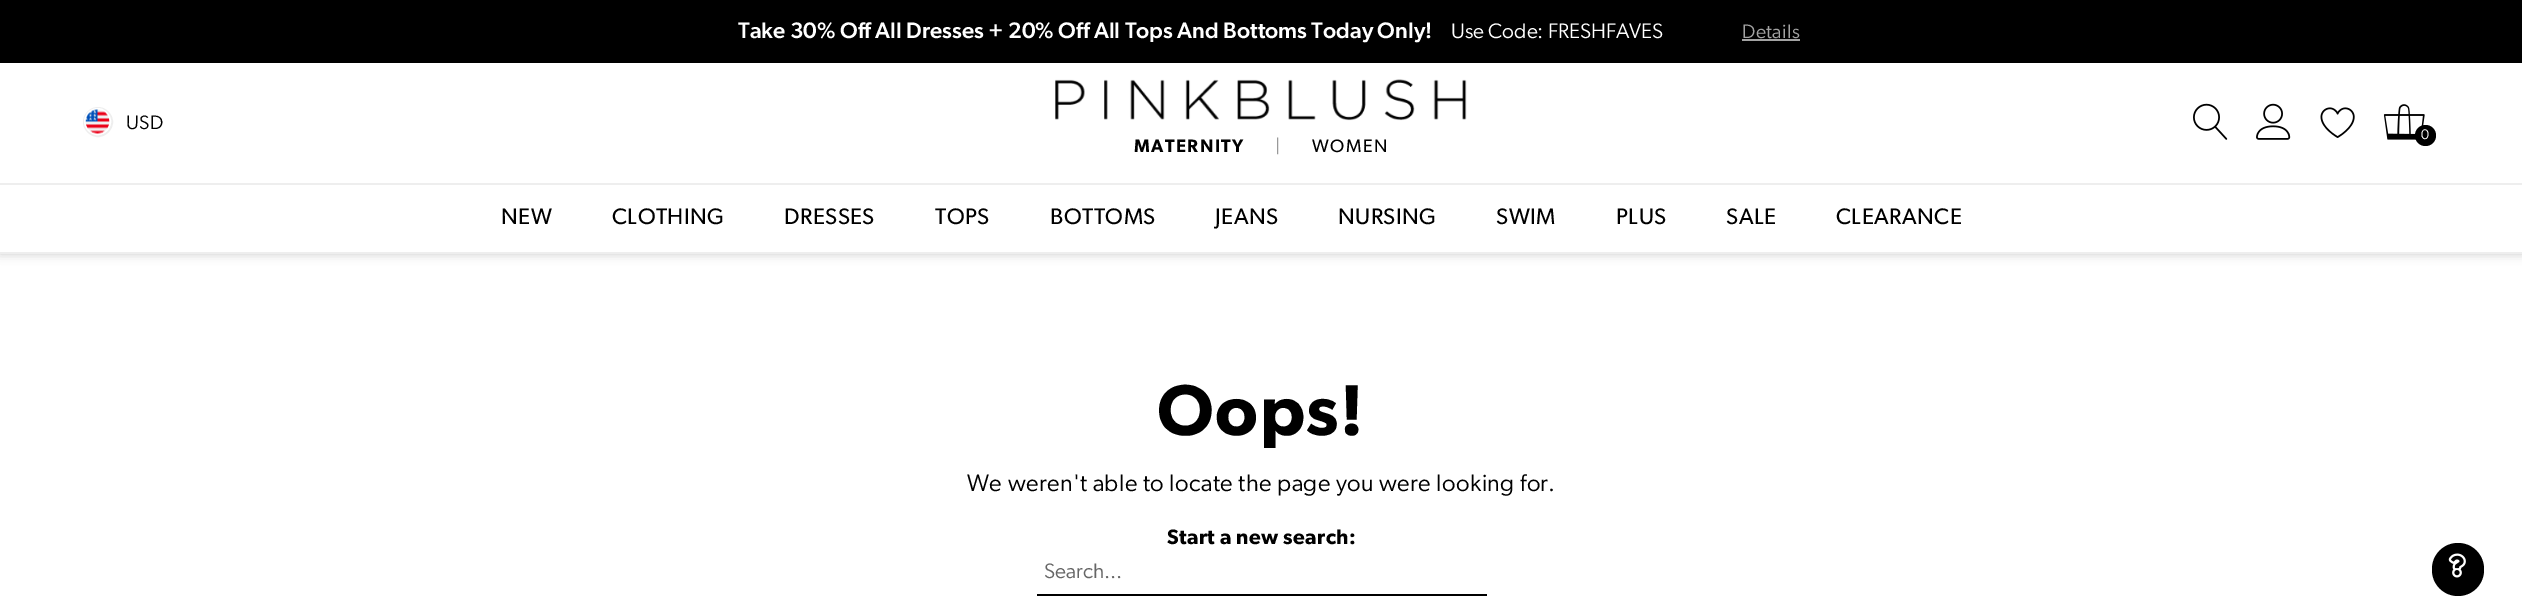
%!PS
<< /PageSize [2522 615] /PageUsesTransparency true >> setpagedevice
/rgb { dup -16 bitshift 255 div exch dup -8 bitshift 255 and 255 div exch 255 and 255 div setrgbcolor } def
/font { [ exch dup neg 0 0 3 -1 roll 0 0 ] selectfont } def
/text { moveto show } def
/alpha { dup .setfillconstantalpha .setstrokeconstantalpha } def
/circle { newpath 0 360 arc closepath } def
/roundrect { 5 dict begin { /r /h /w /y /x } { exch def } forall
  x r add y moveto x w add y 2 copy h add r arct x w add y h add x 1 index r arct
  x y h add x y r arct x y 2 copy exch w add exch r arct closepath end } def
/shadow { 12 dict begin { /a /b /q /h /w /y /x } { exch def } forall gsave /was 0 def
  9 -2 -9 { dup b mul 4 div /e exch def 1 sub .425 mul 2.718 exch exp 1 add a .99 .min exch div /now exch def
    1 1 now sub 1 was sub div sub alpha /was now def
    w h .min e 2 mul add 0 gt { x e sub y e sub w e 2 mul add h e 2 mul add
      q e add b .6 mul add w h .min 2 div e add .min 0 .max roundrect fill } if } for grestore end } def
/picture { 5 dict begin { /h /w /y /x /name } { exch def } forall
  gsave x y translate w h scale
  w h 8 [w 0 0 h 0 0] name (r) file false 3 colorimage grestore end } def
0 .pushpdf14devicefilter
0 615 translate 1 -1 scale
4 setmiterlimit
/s1 { /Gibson-Medium 22.5 font 16#FFFFFF rgb } def
/s2 { /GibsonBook-Regular 21 font 16#FFFFFF rgb } def
/s3 { /GibsonBook-Regular 21 font 16#666666 rgb } def
16#FFFFFF rgb
0 0 2522 615 rectfill
16#000000 rgb
0 0 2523 254 0 5 0.2 shadow
16#FFFFFF rgb
0 63 2522 189 rectfill
16#EEEEEE rgb
0 252 2522 2 rectfill
16#000000 rgb
0 0 2522 63 rectfill
s1
(Take 30% Off All Dresses + 20% Off All Tops And Bottoms Today Only!) 738 38 text
s2
(Use Code: FRESHFAVES) 1451 38 text
/GibsonBook-Regular 19.5 font
16#A3A3A3 rgb
1742 38 moveto 0.42 0 (Details) ashow
1742 39 58 2 rectfill
16#EEEEEE rgb
2 setlinewidth
98 122 14 circle stroke
16#FFFFFF rgb
97.5 121.5 12.5 circle stroke
(pic1.raw) 85 109 25 25 picture
16#000000 rgb
126 129 moveto 0.42 0 (USD) ashow
(pic2.raw) 2193 103 35 37 picture
(pic3.raw) 2256 103 35 37 picture
(pic4.raw) 2320 107 35 31 picture
(pic5.raw) 2383 104 42 36 picture
2425.5 135.5 10.5 circle fill
/GibsonBook-Regular 14 font
16#FFFFFF rgb
2421 139 moveto 0.42 0 (0) ashow
(pic6.raw) 1055 79 412 42 picture
/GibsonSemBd-SemiBold 18 font
16#000000 rgb
1134 152 moveto 1.5 0 (MATERNITY) ashow
/Gibson-Regular 18 font
16#999999 rgb
1275 152 moveto 1.5 0 (|) ashow
16#000000 rgb
1312 152 moveto 1.5 0 (WOMEN) ashow
16#EEEEEE rgb
0 183 2522 2 rectfill
/Gibson-Regular 22.5 font
16#000000 rgb
501 224 moveto 0.5 0 (NEW) ashow
612 224 moveto 0.5 0 (CLOTHING) ashow
784 224 moveto 0.5 0 (DRESSES) ashow
935 224 moveto 0.5 0 (TOPS) ashow
1050 224 moveto 0.5 0 (BOTTOMS) ashow
1215 224 moveto 0.5 0 (JEANS) ashow
1338 224 moveto 0.5 0 (NURSING) ashow
1496 224 moveto 0.5 0 (SWIM) ashow
1616 224 moveto 0.5 0 (PLUS) ashow
1726 224 moveto 0.5 0 (SALE) ashow
1836 224 moveto 0.5 0 (CLEARANCE) ashow
/GibsonSemBd-SemiBold 72 font
1157 435 moveto 1.5 0 (Oops!) ashow
/GibsonBook-Regular 24 font
967 491 moveto 0.42 0 (We weren't able to locate the page you were looking for.) ashow
/GibsonSemBd-SemiBold 21 font
1167 544 moveto 0.42 0 (Start a new search:) ashow
1037 594 450 2 rectfill
s3
(Search...) 1044 578 text
16#000000 rgb
2432 543 52 53 26 roundrect fill
(pic7.raw) 2448 553 18 25 picture
.poppdf14devicefilter showpage
